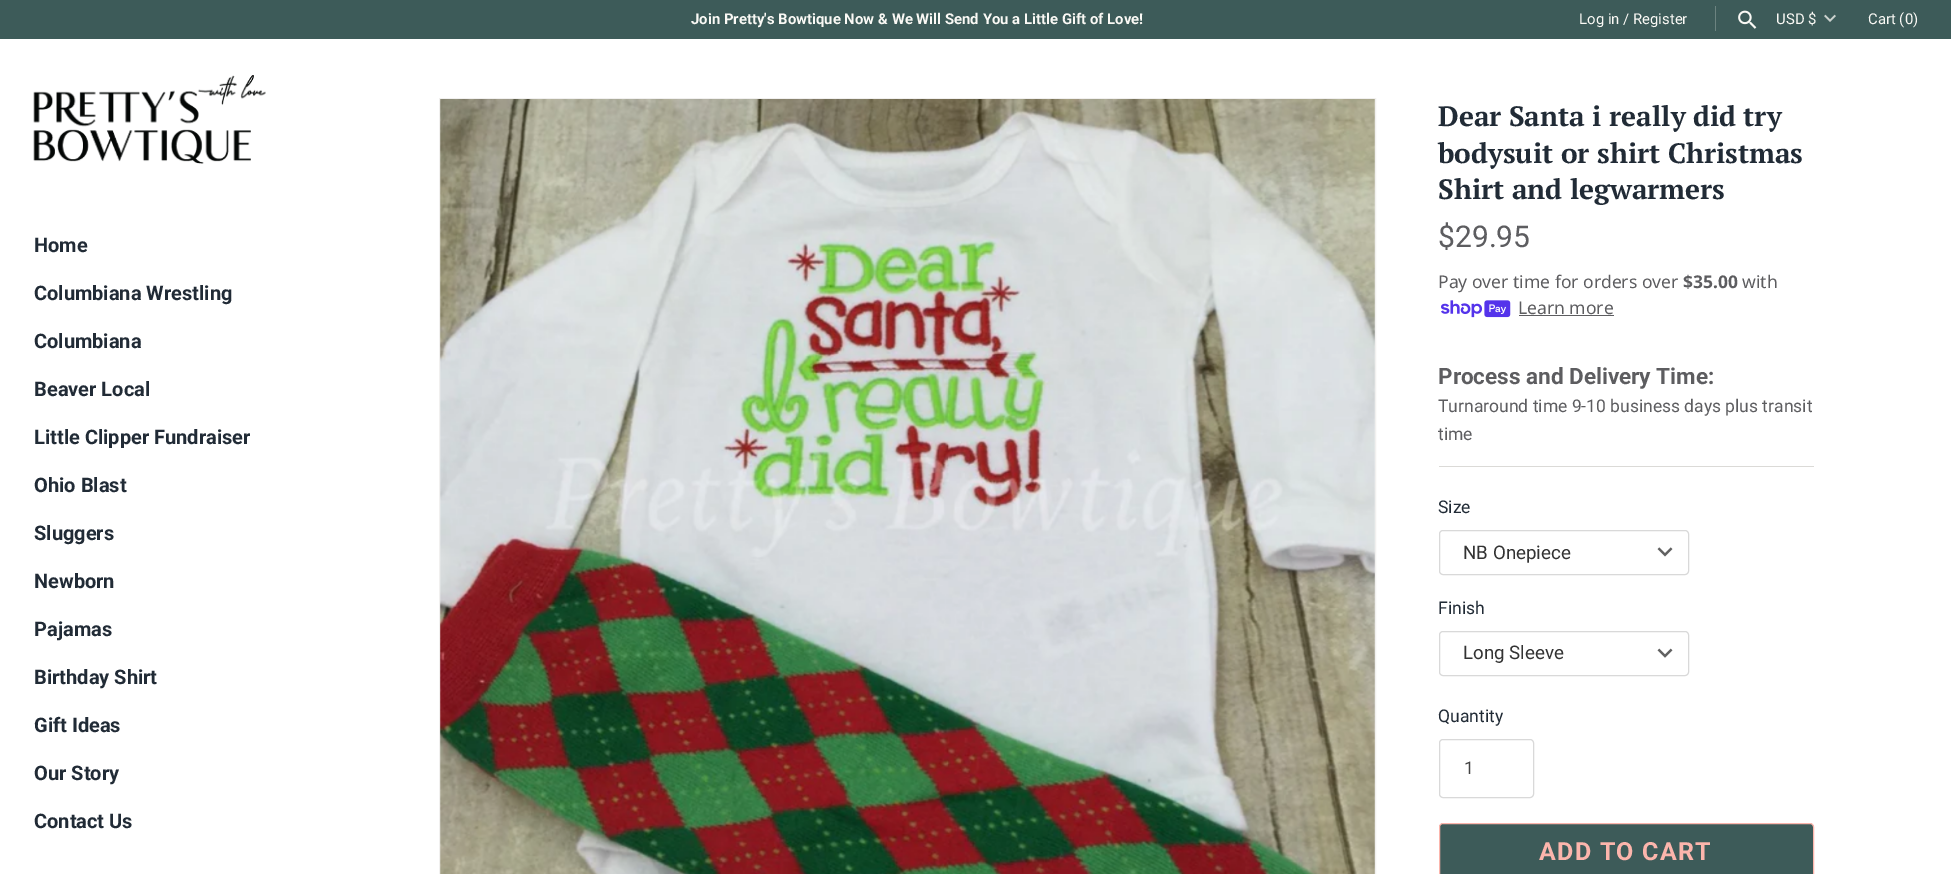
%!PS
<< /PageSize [1951 874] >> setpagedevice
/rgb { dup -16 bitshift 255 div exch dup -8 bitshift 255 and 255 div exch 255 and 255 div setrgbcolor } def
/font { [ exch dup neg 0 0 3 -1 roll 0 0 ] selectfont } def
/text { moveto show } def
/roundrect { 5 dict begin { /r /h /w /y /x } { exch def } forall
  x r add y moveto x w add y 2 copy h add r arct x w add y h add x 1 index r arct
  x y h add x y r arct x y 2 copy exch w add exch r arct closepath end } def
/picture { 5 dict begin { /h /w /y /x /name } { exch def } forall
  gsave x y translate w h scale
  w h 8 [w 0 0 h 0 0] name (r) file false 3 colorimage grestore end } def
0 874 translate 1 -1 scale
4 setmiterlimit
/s1 { /Roboto-Bold 14.9 font 16#FAF9F5 rgb } def
/s2 { /Roboto-Regular 14.9 font 16#FAF9F5 rgb } def
/s3 { /Roboto-Bold 20 font 16#212B36 rgb } def
/s4 { /PTSerif-Bold 28 font 16#212B36 rgb } def
/s5 { /Roboto-Regular 30 font 16#5D5D60 rgb } def
/s6 { /NotoSans-Regular 17.5 font 16#5D5D60 rgb } def
/s7 { /NotoSans-Bold 17.5 font 16#5D5D60 rgb } def
/s8 { /Roboto-Bold 22.5 font 16#5D5D60 rgb } def
/s9 { /Roboto-Regular 17.5 font 16#5D5D60 rgb } def
/s10 { /Roboto-Regular 17.5 font 16#212B36 rgb } def
/s11 { /Roboto-Regular 18.75 font 16#333333 rgb } def
/s12 { /Roboto-Regular 17.5 font 16#444444 rgb } def
16#FFFFFF rgb
0 0 1951 874 rectfill
16#3D5B59 rgb
0 0 1951 39 rectfill
s1
(Join Pretty's Bowtique Now & We Will Send You a Little Gift of Love!) 691 24 text
s2
(Log in / Register) 1579 24 text
16#6C8380 rgb
1715 6 1 25 rectfill
(pic1.raw) 1738 10 19 19 picture
s2
(USD $) 1776 24 text
(pic2.raw) 1824 14 12 8 picture
(Cart \(0\)) 1868 24 text
(pic3.raw) 33 75 233 89 picture
s3
(Home) 34 252 text
(Columbiana Wrestling) 34 300 text
(Columbiana) 34 348 text
(Beaver Local) 34 396 text
(Little Clipper Fundraiser) 34 444 text
(Ohio Blast) 34 492 text
(Sluggers) 34 540 text
(Newborn) 34 588 text
(Pajamas) 34 636 text
(Birthday Shirt) 34 684 text
(Gift Ideas) 34 732 text
(Our Story) 34 780 text
(Contact Us) 34 828 text
16#F1F0EF rgb
439.5 98.5 936 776 rectstroke
(pic4.raw) 440 99 935 775 picture
s4
(Dear Santa i really did try) 1438 126 text
(bodysuit or shirt Christmas) 1438 163 text
(Shirt and legwarmers) 1438 199 text
s5
($29.95) 1438 247 text
s6
(Pay over time for orders over) 1438 288 text
s7
($35.00) 1683 288 text
s6
(with) 1742 288 text
(pic5.raw) 1441 300 70 18 picture
(Learn more) 1518 314 text
1519 315 95 1 rectfill
s8
(Process and Delivery Time:) 1438 384 text
s9
(Turnaround time 9-10 business days plus transit) 1438 412 text
(time) 1438 440 text
16#DBDAD7 rgb
1439 466 375 1 rectfill
s10
(Size) 1438 513 text
(pic6.raw) 1657 547 16 10 picture
16#D9D9D9 rgb
1439.5 530.5 249 44 3.5 roundrect stroke
s11
(NB Onepiece) 1463 559 text
s10
(Finish) 1438 614 text
(pic7.raw) 1657 648 16 10 picture
16#D9D9D9 rgb
1439.5 631.5 249 44 3.5 roundrect stroke
s11
(Long Sleeve) 1463 659 text
s10
(Quantity) 1438 722 text
16#D9D9D9 rgb
1439.5 739.5 94 58 3.5 roundrect stroke
s12
(1) 1464 774 text
16#3D5B59 rgb
1439.5 823.5 374 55 3.5 roundrect gsave fill grestore
16#FCB5AC rgb
stroke
/Roboto-Bold 25 font
1539 860 moveto 1.25 0 (ADD TO CART) ashow
showpage
